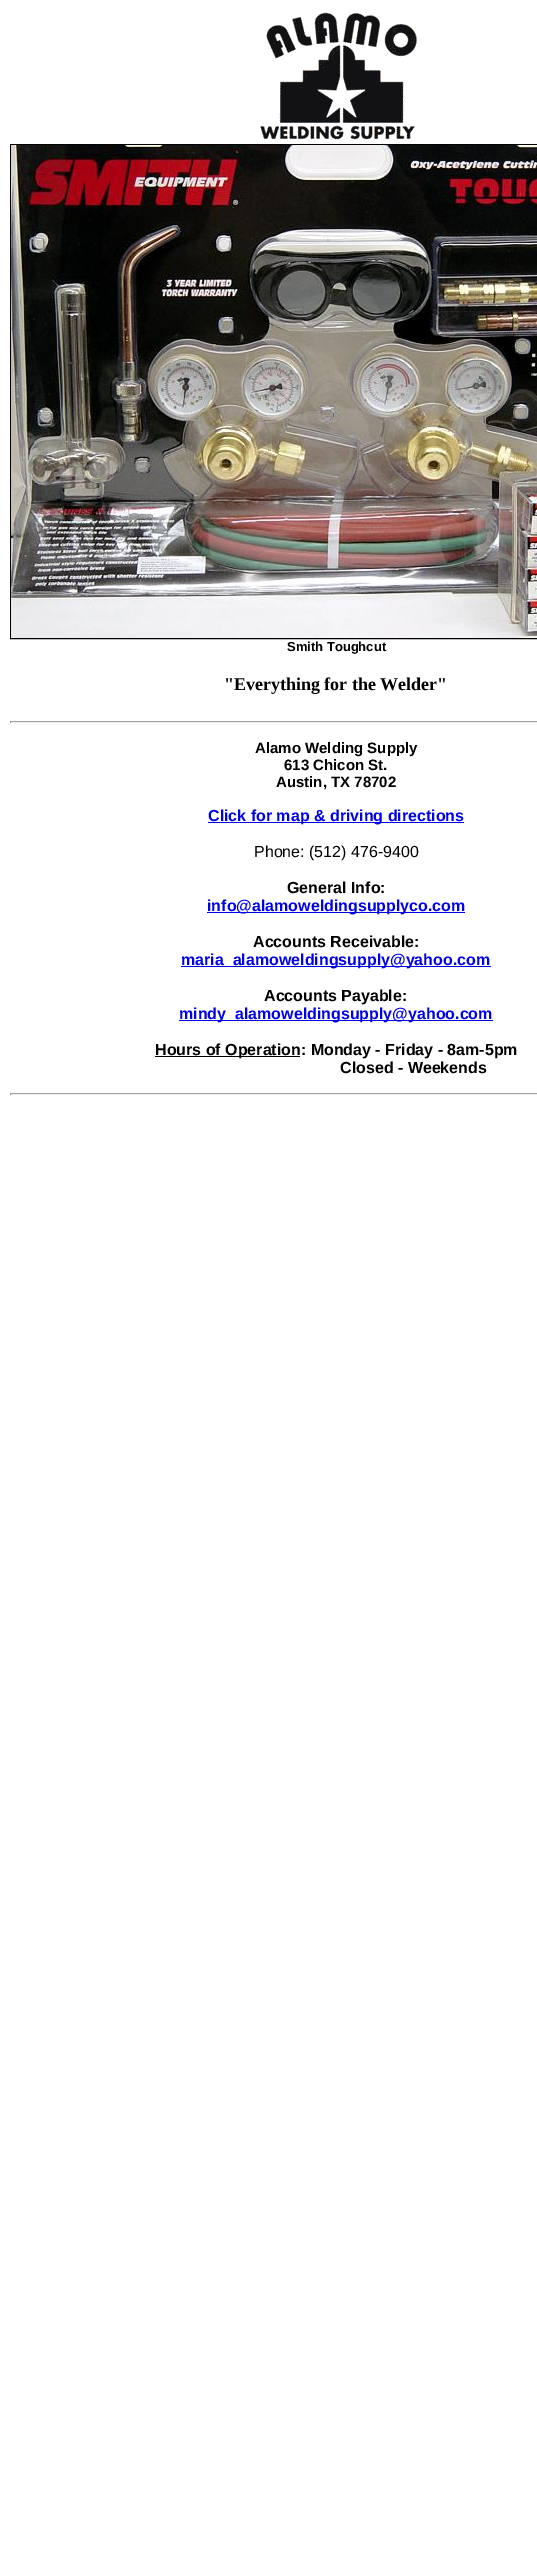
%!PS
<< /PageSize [537 2571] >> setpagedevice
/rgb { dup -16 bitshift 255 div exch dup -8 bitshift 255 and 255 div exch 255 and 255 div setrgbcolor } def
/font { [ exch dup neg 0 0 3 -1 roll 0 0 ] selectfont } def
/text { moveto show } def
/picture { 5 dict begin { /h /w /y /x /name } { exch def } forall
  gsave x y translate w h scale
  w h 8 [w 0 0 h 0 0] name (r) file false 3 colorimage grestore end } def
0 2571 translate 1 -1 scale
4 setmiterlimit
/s1 { /LiberationSans-Bold 13 font 16#000000 rgb } def
/s2 { /LiberationSerif-Bold 18 font 16#000000 rgb } def
/s3 { /LiberationSans-Bold 15 font 16#000000 rgb } def
/s4 { /LiberationSans-Bold 16 font 16#0000EE rgb } def
/s5 { /LiberationSans-Regular 16 font 16#000000 rgb } def
/s6 { /LiberationSans-Bold 16 font 16#000000 rgb } def
16#FFFFFF rgb
0 0 537 2571 rectfill
(pic1.raw) 260 12 157 128 picture
16#000000 rgb
10.5 144.5 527 494 rectstroke
(pic2.raw) 11 145 526 493 picture
s1
(Smith Toughcut) 287 651 text
s2
("Everything for the Welder") 224 690 text
16#9F9F9F rgb
10 721 527 1 rectfill
16#EEEEEE rgb
10 722 527 1 rectfill
16#9F9F9F rgb
10 721 1 2 rectfill
s3
(Alamo Welding Supply) 255 753 text
(613 Chicon St.) 284 770 text
(Austin, TX 78702) 276 787 text
16#0000EE rgb
208 822 256 1 rectfill
s4
(Click for map & driving directions) 208 821 text
s5
(Phone: \(512\) 476-9400) 254 857 text
s6
(General Info:) 287 893 text
16#0000EE rgb
207 912 258 1 rectfill
(info@alamoweldingsupplyco.com) 207 911 text
s6
(Accounts Receivable:) 253 947 text
16#0000EE rgb
181 966 310 1 rectfill
(maria_alamoweldingsupply@yahoo.com) 181 965 text
s6
(Accounts Payable:) 264 1001 text
16#0000EE rgb
179 1020 314 1 rectfill
(mindy_alamoweldingsupply@yahoo.com) 179 1019 text
16#000000 rgb
155 1056 145 1 rectfill
(Hours of Operation: Monday - Friday - 8am-5pm) 155 1055 text
(Closed - Weekends) 340 1073 text
16#9F9F9F rgb
10 1093 527 1 rectfill
16#EEEEEE rgb
10 1094 527 1 rectfill
16#9F9F9F rgb
10 1093 1 2 rectfill
showpage
